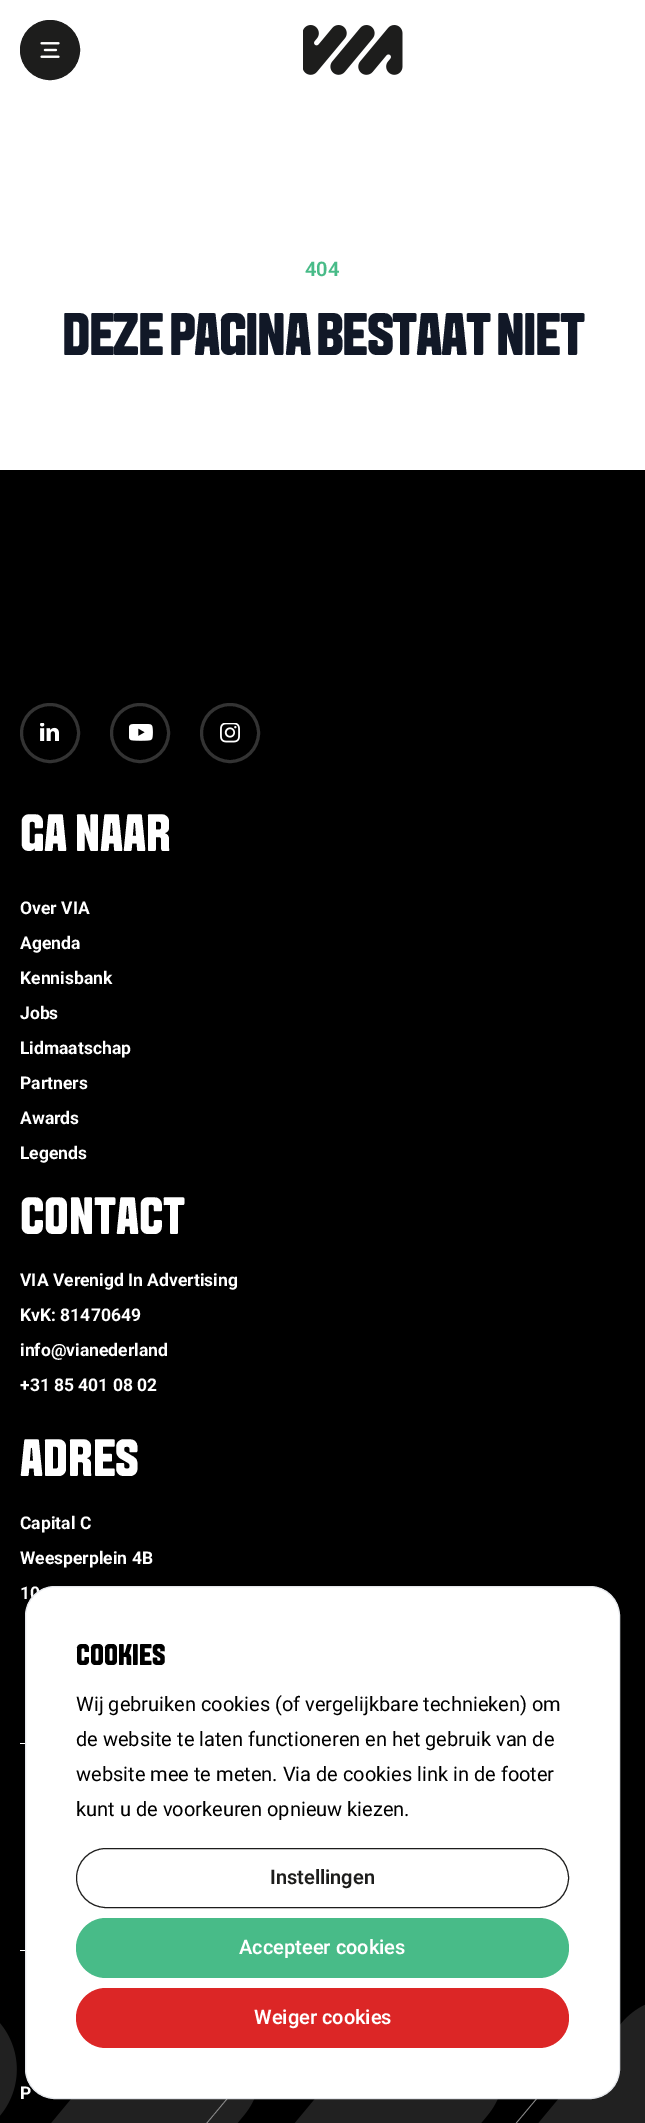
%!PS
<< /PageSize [645 2123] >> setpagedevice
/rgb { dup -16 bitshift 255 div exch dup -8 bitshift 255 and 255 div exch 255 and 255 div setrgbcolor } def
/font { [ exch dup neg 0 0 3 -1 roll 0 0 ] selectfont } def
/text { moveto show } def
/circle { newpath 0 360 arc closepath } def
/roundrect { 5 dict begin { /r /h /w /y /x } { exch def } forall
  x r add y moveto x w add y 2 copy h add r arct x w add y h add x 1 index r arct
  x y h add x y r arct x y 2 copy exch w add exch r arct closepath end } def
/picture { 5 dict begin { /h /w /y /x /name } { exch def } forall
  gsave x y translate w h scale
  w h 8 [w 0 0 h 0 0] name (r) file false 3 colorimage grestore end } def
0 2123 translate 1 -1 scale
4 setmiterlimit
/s1 { /Roboto-SemiBold 20 font 16#48BB88 rgb } def
/s2 { /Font-ExtraBold 52.5 font 16#FFFFFF rgb } def
/s3 { /Roboto-Bold 17.5 font 16#FFFFFF rgb } def
/s4 { /Font-ExtraBold 30 font 16#000000 rgb } def
/s5 { /Roboto-Regular 20 font 16#000000 rgb } def
/s6 { /Roboto-SemiBold 20 font 16#1D1D1C rgb } def
/s7 { /Roboto-SemiBold 20 font 16#FFFFFF rgb } def
16#FFFFFF rgb
0 0 645 2123 rectfill
16#1D1D1C rgb
50 50 29.5 circle gsave fill grestore
stroke
(pic1.raw) 40 42 20 16 picture
(pic2.raw) 303 25 100 50 picture
s1
(404) 305 276 text
/Font-ExtraBold 60 font
16#111827 rgb
62 355 moveto -1.5 0 (DEZE PAGINA BESTAAT NIET) ashow
16#000000 rgb
0 470 645 1653 rectfill
16#333333 rgb
3 setlinewidth
50 733 28.5 circle stroke
(pic3.raw) 40 723 19 18 picture
140 733 28.5 circle stroke
(pic4.raw) 129 724 24 17 picture
230 733 28.5 circle stroke
(pic5.raw) 220 723 20 20 picture
s2
(GA NAAR) 20 851 text
s3
(Over VIA) 20 914 text
(Agenda) 20 949 text
(Kennisbank) 20 984 text
(Jobs) 20 1019 text
(Lidmaatschap) 20 1054 text
(Partners) 20 1089 text
(Awards) 20 1124 text
(Legends) 20 1159 text
s2
(CONTACT) 20 1234 text
s3
(VIA Verenigd In Advertising) 20 1286 text
(KvK: 81470649) 20 1321 text
(info@vianederland) 20 1356 text
(+31 85 401 08 02) 20 1391 text
s2
(ADRES) 20 1476 text
s3
(Capital C) 20 1529 text
(Weesperplein 4B) 20 1564 text
(10) 20 1599 text
20 1743 5 1 rectfill
20 1950 5 1 rectfill
(pic6.raw) 0 2005 645 118 picture
(P) 20 2099 text
16#8D8D8D rgb
0.7 setlinewidth
69 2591.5 moveto 41.5 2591.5 14.5 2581.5 -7 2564 curveto -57 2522 -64 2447.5 -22 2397 curveto 384 1911 lineto 406.5 1884 440 1868.5 475.5 1868.5 curveto 503 1868.5 530 1878.5 551 1896 curveto 601.5 1938 608.5 2012.5 566.5 2063 curveto 160 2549 lineto 137.5 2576 104.5 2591.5 69 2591.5 curveto closepath stroke
16#FFFFFF rgb
25.5 1586.5 594 512 29.5 roundrect gsave fill grestore
16#E5E7EB rgb
1 setlinewidth
stroke
s4
(COOKIES) 76 1665 text
s5
(Wij gebruiken cookies \(of vergelijkbare technieken\) om) 76 1711 text
(de website te laten functioneren en het gebruik van de) 76 1746 text
(website mee te meten. Via de cookies link in de footer) 76 1781 text
(kunt u de voorkeuren opnieuw kiezen.) 76 1816 text
16#1D1D1C rgb
76.5 1848.5 492 59 29.5 roundrect stroke
s6
(Instellingen) 270 1884 text
16#48BB88 rgb
76 1918 493 60 30 roundrect fill
s7
(Accepteer cookies) 239 1954 text
16#DC2626 rgb
76 1988 493 60 30 roundrect fill
s7
(Weiger cookies) 254 2024 text
showpage
